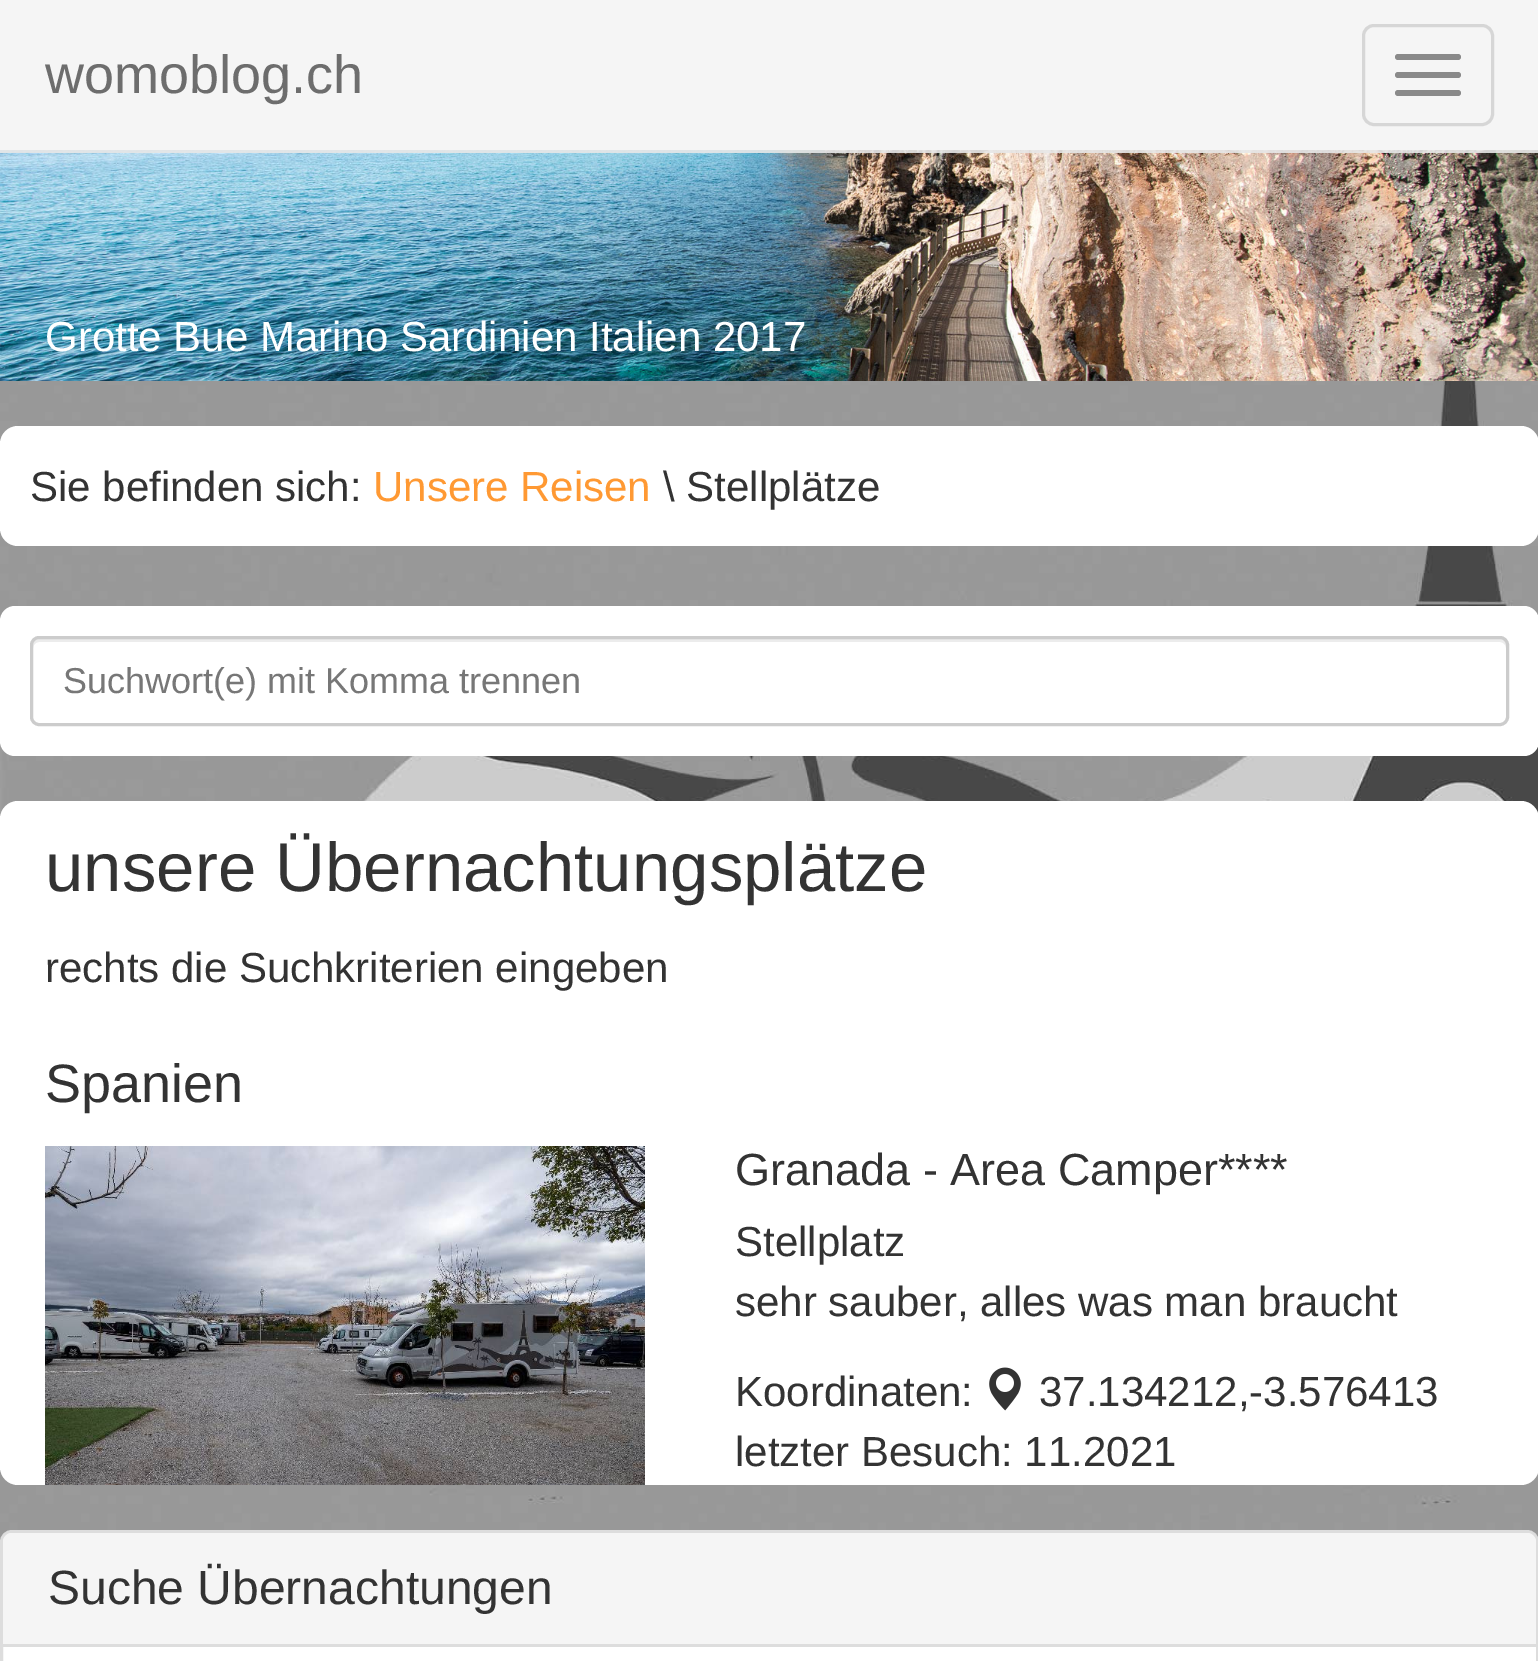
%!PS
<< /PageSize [1538 1661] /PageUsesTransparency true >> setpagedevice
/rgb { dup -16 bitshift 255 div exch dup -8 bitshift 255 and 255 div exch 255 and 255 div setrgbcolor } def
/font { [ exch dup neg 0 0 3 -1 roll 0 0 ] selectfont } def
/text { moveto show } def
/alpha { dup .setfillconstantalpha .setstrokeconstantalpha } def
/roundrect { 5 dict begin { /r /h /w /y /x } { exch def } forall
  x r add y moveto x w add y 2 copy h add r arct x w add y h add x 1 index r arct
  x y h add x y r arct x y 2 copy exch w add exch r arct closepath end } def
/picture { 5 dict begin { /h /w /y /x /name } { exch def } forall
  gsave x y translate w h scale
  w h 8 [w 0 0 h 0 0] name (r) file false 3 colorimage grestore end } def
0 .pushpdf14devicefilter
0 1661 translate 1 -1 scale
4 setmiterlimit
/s1 { /LiberationSans-Regular 54 font 16#6D6D6D rgb } def
/s2 { /LiberationSans-Regular 42 font 16#FFFFFF rgb } def
/s3 { /LiberationSans-Regular 42 font 16#333333 rgb } def
/s4 { /LiberationSans-Regular 42 font 16#FF9933 rgb } def
/s5 { /LiberationSans-Regular 36 font 16#777777 rgb } def
/s6 { /LiberationSans-Regular 69 font 16#333333 rgb } def
/s7 { /LiberationSans-Regular 54 font 16#333333 rgb } def
/s8 { /LiberationSans-Regular 45 font 16#333333 rgb } def
/s9 { /LiberationSans-Regular 48 font 16#333333 rgb } def
16#FFFFFF rgb
0 0 1538 1661 rectfill
(pic1.raw) 0 0 1538 1542 picture
0.9 alpha
0 0 1538 150 rectfill
1 alpha
(pic2.raw) 0 150 1538 231 picture
0.9 alpha
16#E7E7E7 rgb
0 150 1538 3 rectfill
1 alpha
s1
(womoblog.ch) 45 93 text
16#D6D6D6 rgb
3 setlinewidth
1363.5 25.5 129 99 10.5 roundrect stroke
16#8A8A8A rgb
1395 54 66 6 3 roundrect fill
1395 72 66 6 3 roundrect fill
1395 90 66 6 3 roundrect fill
s2
(Grotte Bue Marino Sardinien Italien 2017) 45 351 text
0 426 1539 120 18 roundrect fill
s3
(Sie befinden sich:) 30 501 text
s4
(Unsere Reisen) 373 501 text
s3
(\\ Stellplätze) 663 501 text
16#FFFFFF rgb
0 606 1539 150 15 roundrect fill
16#ECECEC rgb
39 642 moveto 1500 642 lineto 1503 642 1506 645 1506 648 curveto 1506 645 lineto 1506 642 1503 639 1500 639 curveto 39 639 lineto 36 639 33 642 33 645 curveto 33 648 lineto 33 645 36 642 39 642 curveto closepath fill
16#CCCCCC rgb
31.5 637.5 1476 87 7.5 roundrect stroke
s5
(Suchwort\(e\) mit Komma trennen) 63 693 text
16#FFFFFF rgb
0 801 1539 684 18 roundrect fill
s6
(unsere Übernachtungsplätze) 45 891 text
s3
(rechts die Suchkriterien eingeben) 45 982 text
s7
(Spanien) 45 1102 text
(pic3.raw) 45 1146 600 339 picture
s8
(Granada - Area Camper****) 735 1185 text
s3
(Stellplatz) 735 1256 text
(sehr sauber, alles was man braucht) 735 1316 text
(Koordinaten:) 735 1406 text
(pic4.raw) 989 1367 32 44 picture
(37.134212,-3.576413) 1039 1406 text
(letzter Besuch: 11.2021) 735 1466 text
16#FFFFFF rgb
1.5 1531.5 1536 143 10.5 roundrect gsave fill grestore
16#DDDDDD rgb
stroke
16#F5F5F5 rgb
12 1533 moveto 1527 1533 lineto 1532 1533 1536 1537 1536 1542 curveto 1536 1647 lineto 3 1647 lineto 3 1542 lineto 3 1537 7 1533 12 1533 curveto closepath fill
16#DDDDDD rgb
3 1644 1533 3 rectfill
s9
(Suche Übernachtungen) 48 1604 text
.poppdf14devicefilter showpage
